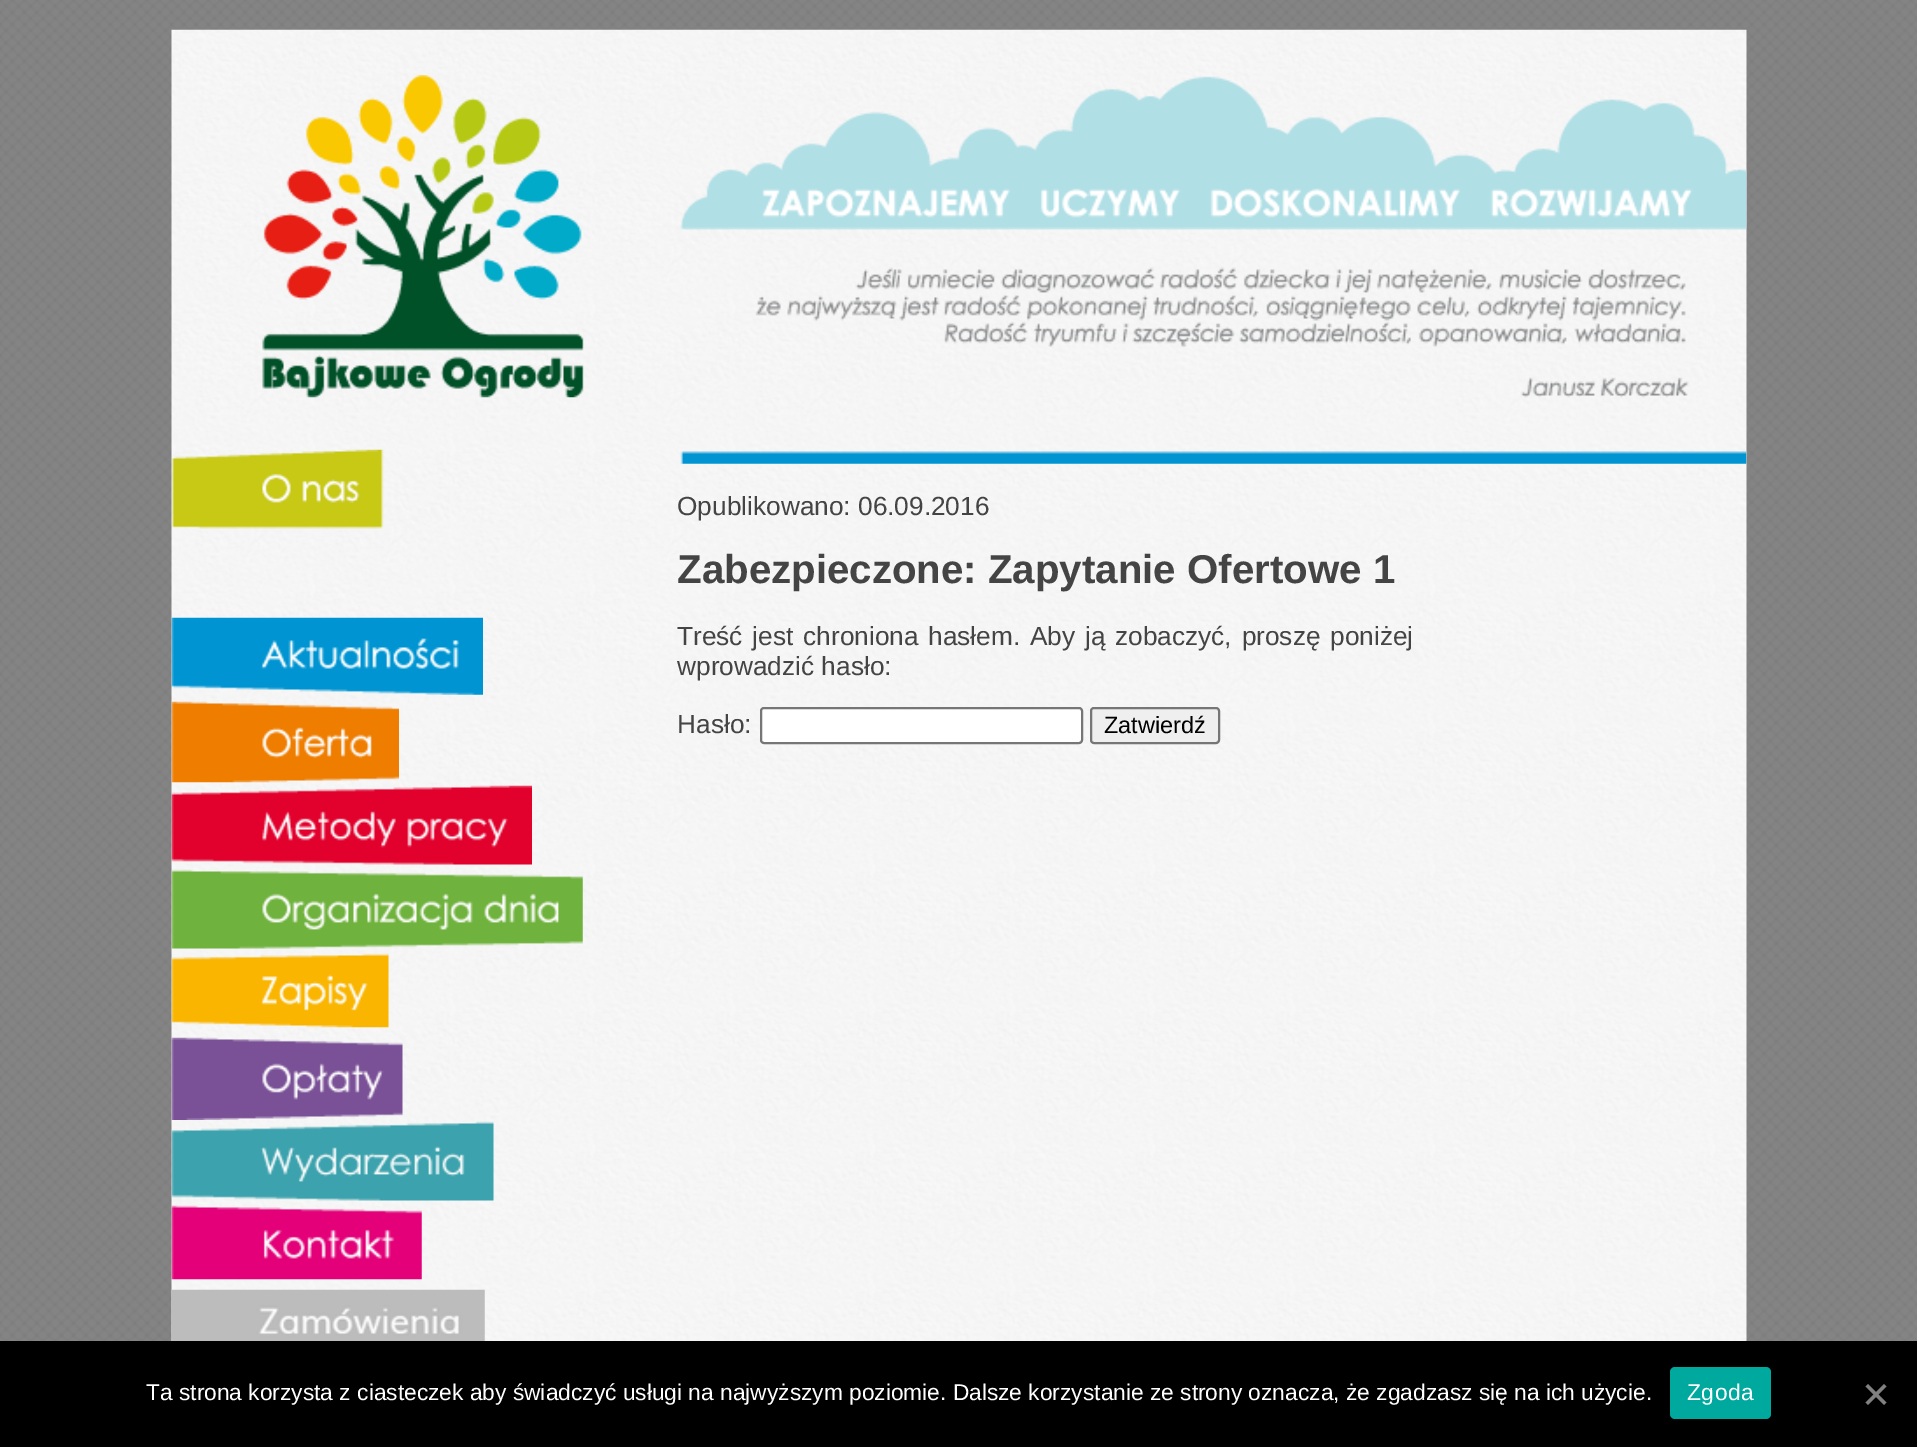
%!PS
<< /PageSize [1917 1447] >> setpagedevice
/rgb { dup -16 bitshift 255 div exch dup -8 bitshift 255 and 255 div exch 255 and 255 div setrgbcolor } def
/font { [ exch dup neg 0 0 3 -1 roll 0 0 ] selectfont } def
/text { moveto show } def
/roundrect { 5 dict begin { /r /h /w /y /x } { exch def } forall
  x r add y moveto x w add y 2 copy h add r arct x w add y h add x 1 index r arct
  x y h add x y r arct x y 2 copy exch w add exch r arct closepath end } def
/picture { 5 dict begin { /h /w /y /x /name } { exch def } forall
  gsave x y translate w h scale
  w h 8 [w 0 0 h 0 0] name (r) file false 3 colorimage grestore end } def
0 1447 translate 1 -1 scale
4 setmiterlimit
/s1 { /LiberationSans-Regular 26.25 font 16#444444 rgb } def
/s2 { /LiberationSans-Bold 40.25 font 16#444444 rgb } def
/s3 { /LiberationSans-Regular 23.5 font 16#000000 rgb } def
/s4 { /LiberationSans-Regular 22.75 font 16#FFFFFF rgb } def
16#FFFFFF rgb
0 0 1917 1447 rectfill
(pic1.raw) 0 0 1917 1341 picture
(pic2.raw) 171 29 1576 1312 picture
(pic3.raw) 262 75 1485 323 picture
(pic4.raw) 171 449 213 80 picture
(pic5.raw) 171 617 312 78 picture
(pic6.raw) 171 701 228 82 picture
(pic7.raw) 171 785 361 80 picture
(pic8.raw) 171 869 412 80 picture
(pic9.raw) 171 953 218 75 picture
(pic10.raw) 171 1037 232 83 picture
(pic11.raw) 171 1121 323 80 picture
(pic12.raw) 171 1205 251 75 picture
(pic13.raw) 172 1289 313 52 picture
(pic14.raw) 680 451 1067 13 picture
s1
(Opublikowano: 06.09.2016) 677 515 text
s2
(Zabezpieczone: Zapytanie Ofertowe 1) 677 583 text
/LiberationSans-Regular 26.25 font
677 645 moveto 2.5 0 32 (Treść jest chroniona hasłem. Aby ją zobaczyć, proszę poniżej) widthshow
(wprowadzić hasło:) 677 675 text
(Hasło:) 677 733 text
16#FFFFFF rgb
761 708 321 35 3 roundrect gsave fill grestore
16#767676 rgb
2 setlinewidth
stroke
16#EFEFEF rgb
1091 708 128 35 3 roundrect gsave fill grestore
16#767676 rgb
stroke
s3
(Zatwierdź) 1104 733 text
0 1341 1917 106 rectfill
s4
(Ta strona korzysta z ciasteczek aby świadczyć usługi na najwyższym poziomie. Dalsze korzystanie ze strony oznacza, że zgadzasz się na ich użycie.) 146 1400 text
16#00A99D rgb
1670 1367 101 52 5 roundrect fill
16#FFFFFF rgb
1687 1400 moveto 0.5 0 (Zgoda) ashow
16#808080 rgb
1884 1384 moveto 1886.5 1386.5 lineto 1868 1405 lineto 1865.5 1402.5 lineto closepath fill
1865.5 1386.5 moveto 1868 1384 lineto 1886.5 1402.5 lineto 1884 1405 lineto closepath fill
showpage
